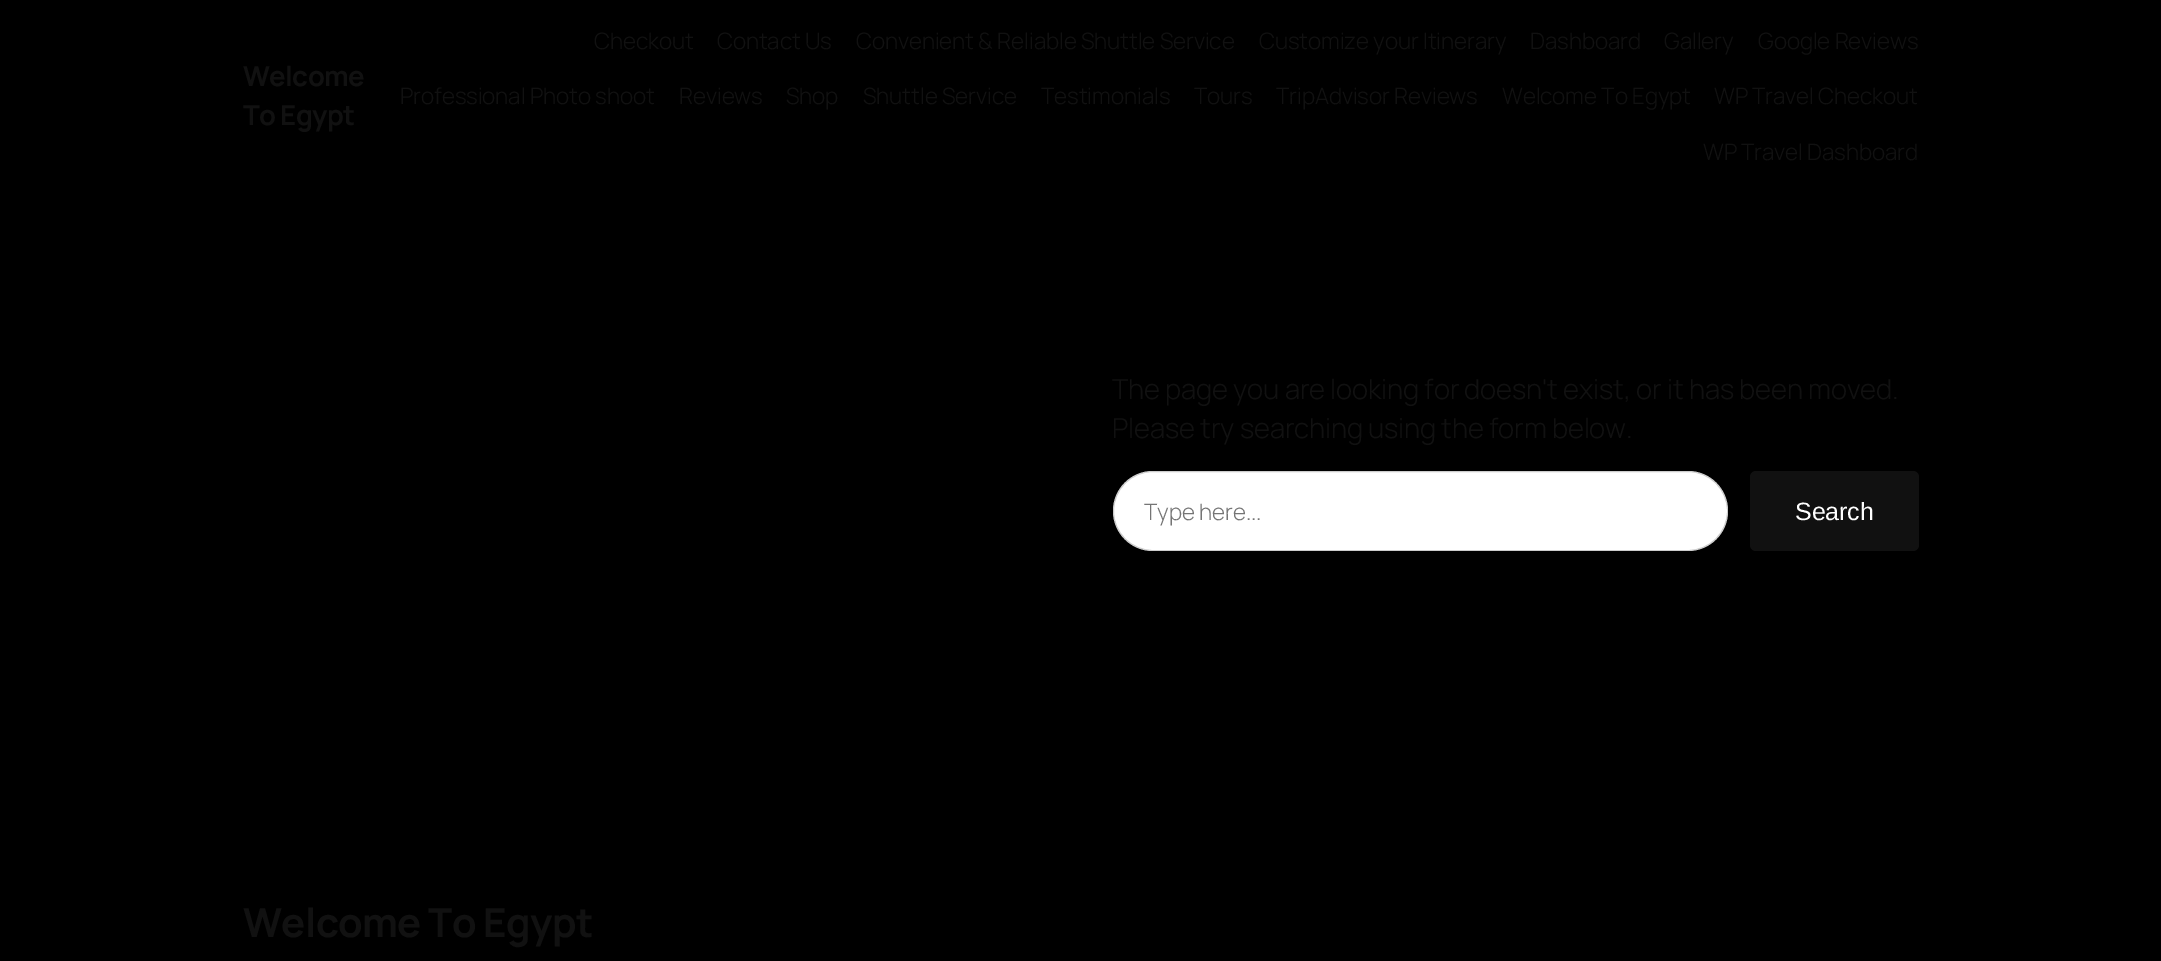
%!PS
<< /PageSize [2161 961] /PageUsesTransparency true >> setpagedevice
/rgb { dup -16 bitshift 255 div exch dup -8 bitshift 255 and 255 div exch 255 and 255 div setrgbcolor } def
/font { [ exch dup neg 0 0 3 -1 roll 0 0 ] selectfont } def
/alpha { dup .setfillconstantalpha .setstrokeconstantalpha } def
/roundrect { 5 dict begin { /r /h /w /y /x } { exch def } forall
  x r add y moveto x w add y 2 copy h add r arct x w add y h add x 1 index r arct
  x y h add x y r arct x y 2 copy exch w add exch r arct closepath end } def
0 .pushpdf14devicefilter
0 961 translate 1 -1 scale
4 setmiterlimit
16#000000 rgb
0 0 2161 961 rectfill
/Manrope-Bold 27.5 font
16#111111 rgb
243 86 moveto -0.6 0 (Welcome) ashow
243 125 moveto -0.6 0 (To Egypt) ashow
/Manrope-Light 22.5 font
594 49 moveto -0.12 0 (Checkout) ashow
717 49 moveto -0.12 0 (Contact Us) ashow
856 49 moveto -0.12 0 (Convenient & Reliable Shuttle Service) ashow
1259 49 moveto -0.12 0 (Customize your Itinerary) ashow
1530 49 moveto -0.12 0 (Dashboard) ashow
1664 49 moveto -0.12 0 (Gallery) ashow
1758 49 moveto -0.12 0 (Google Reviews) ashow
400 104 moveto -0.12 0 (Professional Photo shoot) ashow
679 104 moveto -0.12 0 (Reviews) ashow
786 104 moveto -0.12 0 (Shop) ashow
863 104 moveto -0.12 0 (Shuttle Service) ashow
1041 104 moveto -0.12 0 (Testimonials) ashow
1194 104 moveto -0.12 0 (Tours) ashow
1276 104 moveto -0.12 0 (TripAdvisor Reviews) ashow
1502 104 moveto -0.12 0 (Welcome To Egypt) ashow
1714 104 moveto -0.12 0 (WP Travel Checkout) ashow
1703 160 moveto -0.12 0 (WP Travel Dashboard) ashow
/Manrope-Light 27.5 font
1112 399 moveto -0.12 0 (The page you are looking for doesn't exist, or it has been moved.) ashow
1112 438 moveto -0.12 0 (Please try searching using the form below.) ashow
16#FFFFFF rgb
1113 471 615 80 40 roundrect fill
0.2 alpha
16#000000 rgb
1113.5 471.5 614 79 39.5 roundrect stroke
/Manrope-Light 22.5 font
1 alpha
16#757575 rgb
1144 520 moveto -0.12 0 (Type here...) ashow
16#111111 rgb
1750 471 169 80 6 roundrect fill
/LiberationSans-Regular 25 font
16#FFFFFF rgb
1795 520 moveto -0.12 0 (Search) ashow
/Manrope-Bold 40 font
16#111111 rgb
243 937 moveto -0.6 0 (Welcome To Egypt) ashow
.poppdf14devicefilter showpage
